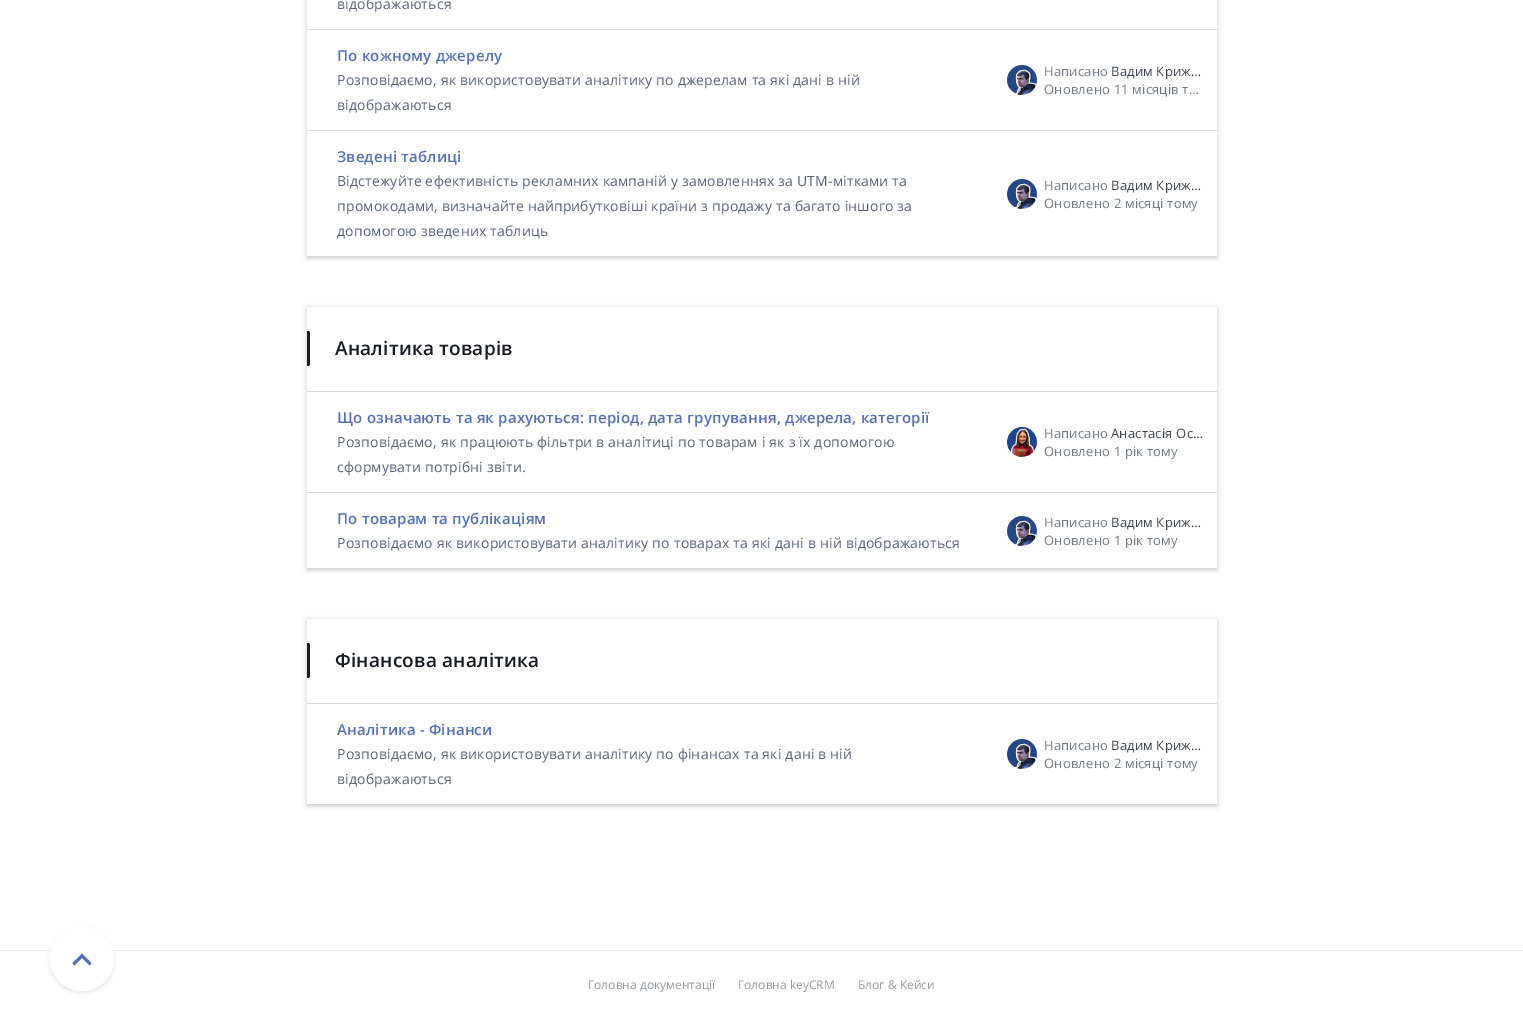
%!PS
<< /PageSize [1523 1026] /PageUsesTransparency true >> setpagedevice
/rgb { dup -16 bitshift 255 div exch dup -8 bitshift 255 and 255 div exch 255 and 255 div setrgbcolor } def
/font { [ exch dup neg 0 0 3 -1 roll 0 0 ] selectfont } def
/text { moveto show } def
/alpha { dup .setfillconstantalpha .setstrokeconstantalpha } def
/circle { newpath 0 360 arc closepath } def
/roundrect { 5 dict begin { /r /h /w /y /x } { exch def } forall
  x r add y moveto x w add y 2 copy h add r arct x w add y h add x 1 index r arct
  x y h add x y r arct x y 2 copy exch w add exch r arct closepath end } def
/shadow { 12 dict begin { /a /b /q /h /w /y /x } { exch def } forall gsave /was 0 def
  9 -2 -9 { dup b mul 4 div /e exch def 1 sub .425 mul 2.718 exch exp 1 add a .99 .min exch div /now exch def
    1 1 now sub 1 was sub div sub alpha /was now def
    w h .min e 2 mul add 0 gt { x e sub y e sub w e 2 mul add h e 2 mul add
      q e add b .6 mul add w h .min 2 div e add .min 0 .max roundrect fill } if } for grestore end } def
/picture { 5 dict begin { /h /w /y /x /name } { exch def } forall
  gsave x y translate w h scale
  w h 8 [w 0 0 h 0 0] name (r) file false 3 colorimage grestore end } def
0 .pushpdf14devicefilter
0 1026 translate 1 -1 scale
4 setmiterlimit
/s1 { /OpenSans-Regular 12 font 16#9399A4 rgb } def
16#FFFFFF rgb
0 0 1523 1026 rectfill
gsave
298 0 moveto 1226 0 lineto 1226 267 lineto 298 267 lineto closepath 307 -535 moveto 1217 -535 lineto 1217 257 lineto 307 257 lineto closepath eoclip newpath
16#000000 rgb
307 -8 910 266 0 2.5 0.2 shadow
grestore
16#D8D8D8 rgb
307 29 910 1 rectfill
/OpenSans-Regular 14 font
16#596378 rgb
337 9 moveto 0.2 0 (відображаються) ashow
16#D8D8D8 rgb
307 130 910 1 rectfill
/OpenSans-SemiBold 15 font
16#5471B4 rgb
337 61 moveto 0.2 0 (По кожному джерелу) ashow
/OpenSans-Regular 14 font
16#596378 rgb
337 85 moveto 0.2 0 (Розповідаємо, як використовувати аналітику по джерелам та які дані в ній) ashow
337 110 moveto 0.2 0 (відображаються) ashow
(pic1.raw) 1007 65 30 30 picture
/OpenSans-Regular 13 font
16#717A84 rgb
1044 76 moveto 0.2 0 (Написано) ashow
16#3B444F rgb
1111 76 moveto 0.2 0 (Вадим Криж…) ashow
16#717A84 rgb
1044 94 moveto 0.2 0 (Оновлено 11 місяців т…) ashow
16#D8D8D8 rgb
307 256 910 1 rectfill
/OpenSans-SemiBold 15 font
16#5471B4 rgb
337 162 moveto 0.2 0 (Зведені таблиці) ashow
/OpenSans-Regular 14 font
16#596378 rgb
337 186 moveto 0.2 0 (Відстежуйте ефективність рекламних кампаній у замовленнях за UTM-мітками та) ashow
337 211 moveto 0.2 0 (промокодами, визначайте найприбутковіші країни з продажу та багато іншого за) ashow
gsave
337 144 630 99 rectclip
337 236 moveto 0.2 0 (допомогою зведених таблиць) ashow
grestore
(pic2.raw) 1007 179 30 30 picture
/OpenSans-Regular 13 font
16#717A84 rgb
1044 190 moveto 0.2 0 (Написано) ashow
16#3B444F rgb
1111 190 moveto 0.2 0 (Вадим Криж…) ashow
16#717A84 rgb
1044 208 moveto 0.2 0 (Оновлено 2 місяці тому) ashow
gsave
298 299 moveto 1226 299 lineto 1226 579 lineto 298 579 lineto closepath 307 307 moveto 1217 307 lineto 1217 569 lineto 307 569 lineto closepath eoclip newpath
16#000000 rgb
307 308 910 262 0 2.5 0.2 shadow
grestore
16#D8D8D8 rgb
307 391 910 1 rectfill
16#171B24 rgb
307 331 moveto 308 331 lineto 309 331 310 332 310 333 curveto 310 364 lineto 310 365 309 366 308 366 curveto 307 366 lineto closepath fill
/OpenSans-SemiBold 19 font
335 355 moveto 0.2 0 (Аналітика товарів) ashow
16#D8D8D8 rgb
307 492 910 1 rectfill
/OpenSans-SemiBold 15 font
16#5471B4 rgb
337 423 moveto 0.2 0 (Що означають та як рахуються: період, дата групування, джерела, категорії) ashow
/OpenSans-Regular 14 font
16#596378 rgb
337 447 moveto 0.2 0 (Розповідаємо, як працюють фільтри в аналітиці по товарам і як з їх допомогою) ashow
337 472 moveto 0.2 0 (сформувати потрібні звіти.) ashow
(pic3.raw) 1007 427 30 30 picture
/OpenSans-Regular 13 font
16#717A84 rgb
1044 438 moveto 0.2 0 (Написано) ashow
16#3B444F rgb
1111 438 moveto 0.2 0 (Анастасія Ос…) ashow
16#717A84 rgb
1044 456 moveto 0.2 0 (Оновлено 1 рік тому) ashow
16#D8D8D8 rgb
307 568 910 1 rectfill
/OpenSans-SemiBold 15 font
16#5471B4 rgb
337 524 moveto 0.2 0 (По товарам та публікаціям) ashow
/OpenSans-Regular 14 font
16#596378 rgb
337 548 moveto 0.2 0 (Розповідаємо як використовувати аналітику по товарах та які дані в ній відображаються) ashow
(pic2.raw) 1007 516 30 30 picture
/OpenSans-Regular 13 font
16#717A84 rgb
1044 527 moveto 0.2 0 (Написано) ashow
16#3B444F rgb
1111 527 moveto 0.2 0 (Вадим Криж…) ashow
16#717A84 rgb
1044 545 moveto 0.2 0 (Оновлено 1 рік тому) ashow
gsave
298 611 moveto 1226 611 lineto 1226 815 lineto 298 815 lineto closepath 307 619 moveto 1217 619 lineto 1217 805 lineto 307 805 lineto closepath eoclip newpath
16#000000 rgb
307 620 910 186 0 2.5 0.2 shadow
grestore
16#D8D8D8 rgb
307 703 910 1 rectfill
16#171B24 rgb
307 643 moveto 308 643 lineto 309 643 310 644 310 645 curveto 310 676 lineto 310 677 309 678 308 678 curveto 307 678 lineto closepath fill
/OpenSans-SemiBold 19 font
335 667 moveto 0.2 0 (Фінансова аналітика) ashow
16#D8D8D8 rgb
307 804 910 1 rectfill
/OpenSans-SemiBold 15 font
16#5471B4 rgb
337 735 moveto 0.2 0 (Аналітика - Фінанси) ashow
/OpenSans-Regular 14 font
16#596378 rgb
337 759 moveto 0.2 0 (Розповідаємо, як використовувати аналітику по фінансах та які дані в ній) ashow
337 784 moveto 0.2 0 (відображаються) ashow
(pic2.raw) 1007 739 30 30 picture
/OpenSans-Regular 13 font
16#717A84 rgb
1044 750 moveto 0.2 0 (Написано) ashow
16#3B444F rgb
1111 750 moveto 0.2 0 (Вадим Криж…) ashow
16#717A84 rgb
1044 768 moveto 0.2 0 (Оновлено 2 місяці тому) ashow
16#ECECEC rgb
0 950 1523 1 rectfill
16#000000 rgb
50 929 64 64 32 2 0.1 shadow
16#FFFFFF rgb
82 959 32 circle fill
16#5471B4 rgb
89.5 965.5 moveto 82 958 lineto 74.5 965.5 lineto 72.5 963 lineto 82 953.5 lineto 91.5 963 lineto closepath fill
s1
(Головна документації) 588 989 text
(Головна keyCRM) 738 989 text
(Блог & Кейси) 858 989 text
.poppdf14devicefilter showpage
